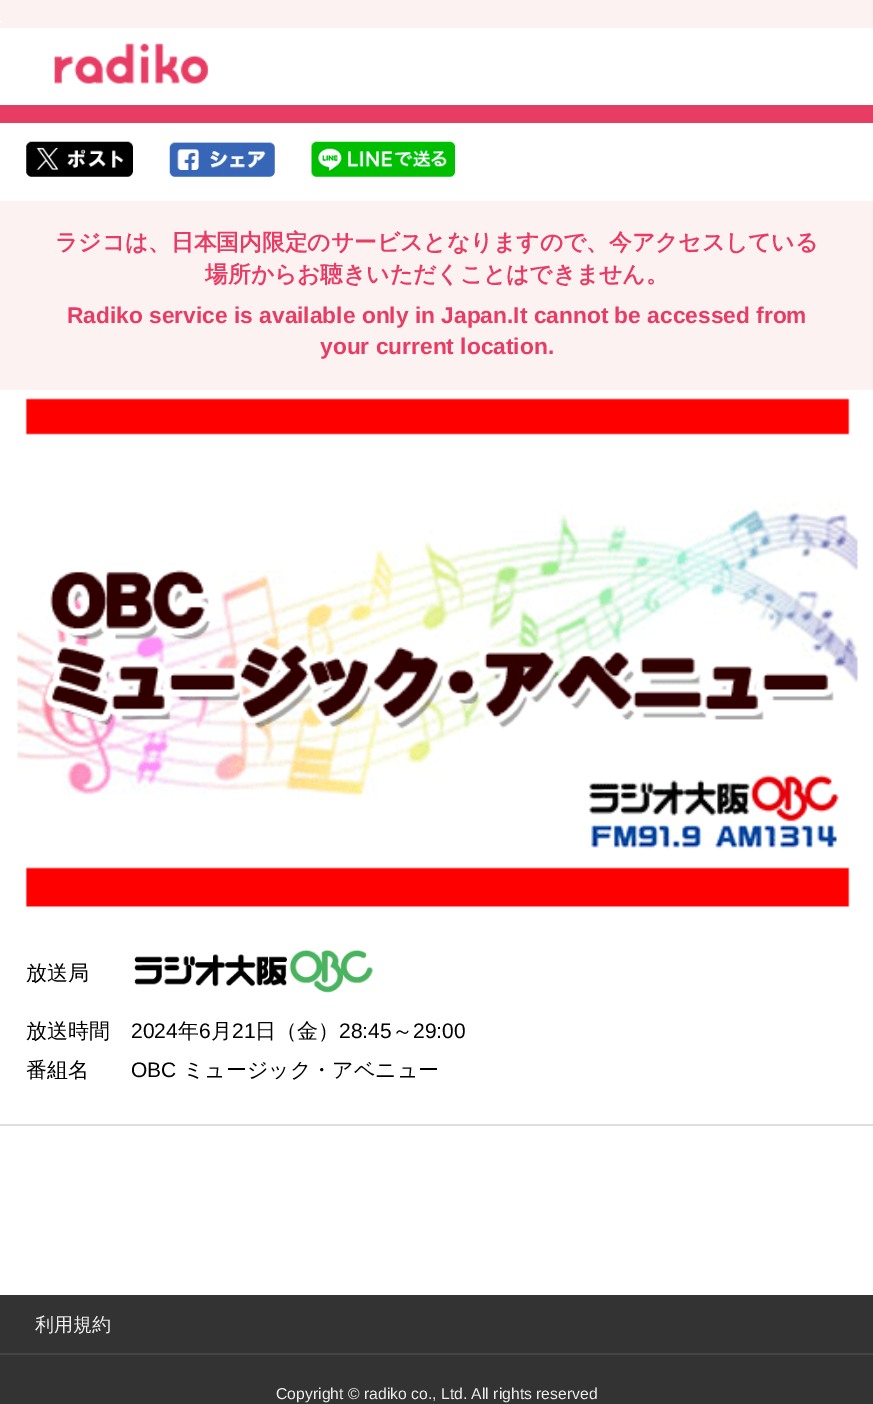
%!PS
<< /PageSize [873 1404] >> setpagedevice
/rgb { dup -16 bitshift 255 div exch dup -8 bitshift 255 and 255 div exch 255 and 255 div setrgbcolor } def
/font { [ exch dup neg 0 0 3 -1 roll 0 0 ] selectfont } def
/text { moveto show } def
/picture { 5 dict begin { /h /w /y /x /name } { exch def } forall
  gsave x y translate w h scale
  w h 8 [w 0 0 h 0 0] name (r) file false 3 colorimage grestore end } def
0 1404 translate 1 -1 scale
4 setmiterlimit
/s1 { /WenQuanYiZenHei-Bold 22.75 font 16#E73C64 rgb } def
/s2 { /LiberationSans-Bold 22.75 font 16#E73C64 rgb } def
/s3 { /WenQuanYiZenHei-Medium 21 font 16#000000 rgb } def
/s4 { /LiberationSans-Regular 21 font 16#000000 rgb } def
/s5 { /WenQuanYiZenHei-Medium 19 font 16#EEEEEE rgb } def
/s6 { /LiberationSans-Regular 15.75 font 16#EEEEEE rgb } def
16#FDF2F2 rgb
0 0 873 1404 rectfill
(pic1.raw) 0 21 2 2 picture
16#FFFFFF rgb
0 28 873 1267 rectfill
16#E73C64 rgb
0 105 873 18 rectfill
(pic2.raw) 54 43 155 41 picture
(pic3.raw) 26 141 107 36 picture
(pic4.raw) 169 142 106 35 picture
(pic5.raw) 311 141 144 36 picture
16#FDF2F2 rgb
0 201 873 189 rectfill
s1
(ラジコは、日本国内限定のサービスとなりますので、今アクセスしている) 55 250 text
(場所からお聴きいただくことはできません。) 205 282 text
s2
(Radiko service is available only in Japan.It cannot be accessed from) 67 323 text
(your current location.) 320 354 text
(pic6.raw) 17 398 841 509 picture
s3
(放送局) 26 980 text
(pic7.raw) 134 949 239 44 picture
(放送時間) 26 1038 text
s4
(2024) 131 1038 text
s3
(年) 178 1038 text
s4
(6) 199 1038 text
s3
(月) 211 1038 text
s4
(21) 232 1038 text
s3
(日（金）) 255 1038 text
s4
(28:45) 339 1038 text
s3
(～) 392 1038 text
s4
(29:00) 413 1038 text
s3
(番組名) 26 1077 text
s4
(OBC) 131 1077 text
s3
(ミュージック・アベニュー) 183 1077 text
16#DFDFDF rgb
0 1124 873 2 rectfill
16#333333 rgb
0 1295 873 109 rectfill
16#454343 rgb
0 1353 873 2 rectfill
s5
(利用規約) 35 1331 text
s6
(Copyright © radiko co., Ltd. All rights reserved) 276 1399 text
showpage
